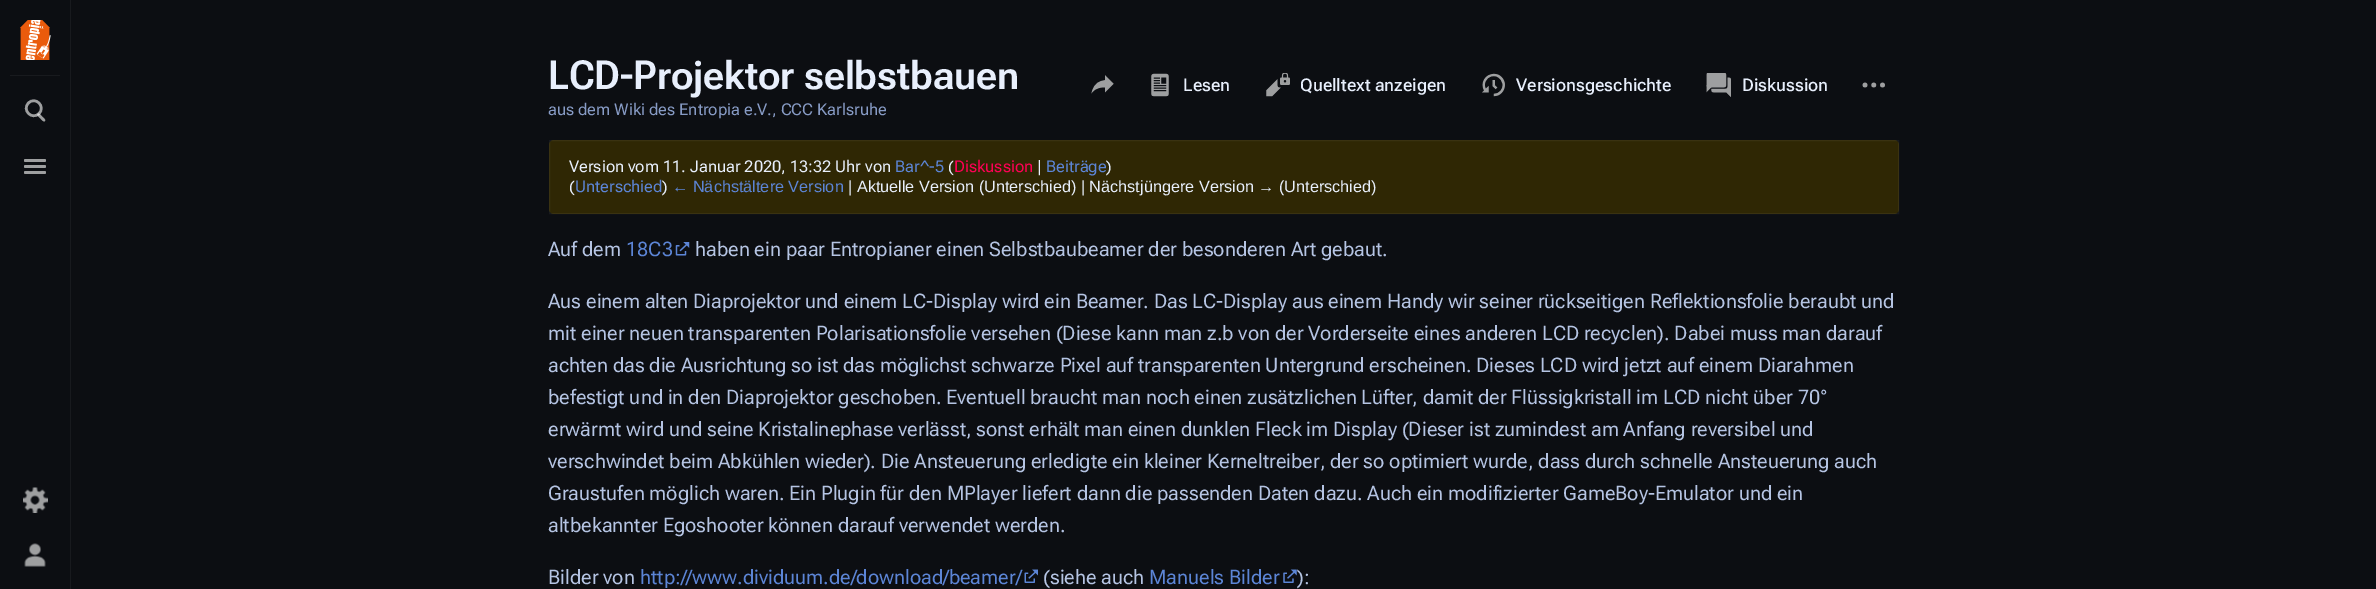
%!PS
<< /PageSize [2376 589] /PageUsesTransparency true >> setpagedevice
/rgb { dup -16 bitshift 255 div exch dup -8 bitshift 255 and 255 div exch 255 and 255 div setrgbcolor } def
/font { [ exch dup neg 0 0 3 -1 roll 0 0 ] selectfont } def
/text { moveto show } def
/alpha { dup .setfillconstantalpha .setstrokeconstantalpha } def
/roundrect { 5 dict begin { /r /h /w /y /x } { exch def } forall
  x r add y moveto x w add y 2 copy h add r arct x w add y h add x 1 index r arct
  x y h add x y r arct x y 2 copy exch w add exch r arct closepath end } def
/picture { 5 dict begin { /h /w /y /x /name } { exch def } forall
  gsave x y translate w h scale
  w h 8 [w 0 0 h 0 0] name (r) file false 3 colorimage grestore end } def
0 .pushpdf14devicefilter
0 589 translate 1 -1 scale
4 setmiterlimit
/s1 { /RobotoFlex-SemiBold 40 font 16#E8EFFC rgb } def
/s2 { /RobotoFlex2-Regular 16.25 font 16#879BC5 rgb } def
/s3 { /RobotoFlex-Medium 17.5 font 16#E8EFFC rgb } def
/s4 { /RobotoFlex2-Regular 16.25 font 16#E8EFFC rgb } def
/s5 { /RobotoFlex2-Regular 16.25 font 16#5C85D6 rgb } def
/s6 { /RobotoFlex2-Regular 16.25 font 16#FF0055 rgb } def
/s7 { /LiberationSans-Regular 16.25 font 16#5C85D6 rgb } def
/s8 { /LiberationSans-Regular 16.25 font 16#E8EFFC rgb } def
/s9 { /RobotoFlex-Regular 20 font 16#B5C4E3 rgb } def
/s10 { /RobotoFlex-Regular 20 font 16#5C85D6 rgb } def
16#0C0E12 rgb
0 0 2376 589 rectfill
16#181A1E rgb
70 0 1 589 rectfill
10 75 50 1 rectfill
(pic1.raw) 20 20 31 40 picture
16#9E9FA0 rgb
37.5 114 moveto 39 112.5 41.5 116 42 116.5 curveto 43 117.5 46 119.5 45 121 curveto 43.5 122.5 41 119 40.5 118.5 curveto 39.5 117.5 36.5 115.5 37.5 114 curveto closepath fill
0.6 alpha
16#FFFFFF rgb
2.5 setlinewidth
28.5 103 moveto 35.5 96 46 106.5 39 113.5 curveto 32 120.5 21.5 110 28.5 103 curveto closepath stroke
1 alpha
16#9E9FA0 rgb
24 159 22 3 1.5 roundrect fill
24 165 22 3 1.5 roundrect fill
24 171 22 3 1.5 roundrect fill
(pic2.raw) 23 487 25 26 picture
(pic3.raw) 24 543 22 24 picture
s1
(LCD-Projektor selbstbauen) 548 89 text
s2
(aus dem Wiki des Entropia e.V., CCC Karlsruhe) 548 115 text
(pic4.raw) 1091 75 23 19 picture
(pic5.raw) 1151 73 18 24 picture
s3
(Lesen) 1183 91 text
(pic6.raw) 1266 73 24 24 picture
(Quelltext anzeigen) 1300 91 text
(pic7.raw) 1482 73 23 24 picture
(Versionsgeschichte) 1516 91 text
(pic8.raw) 1706 73 25 24 picture
(Diskussion) 1742 91 text
(pic9.raw) 1862 82 23 6 picture
16#2F2704 rgb
549 140 1350 74 5 roundrect fill
0.05 alpha
16#FFFFFF rgb
1 setlinewidth
549.5 140.5 1349 73 rectstroke
1 alpha
s4
(Version vom 11. Januar 2020, 13:32 Uhr von) 569 172 text
s5
(Bar^-5) 895 172 text
s4
(\() 948 172 text
s6
(Diskussion) 954 172 text
s4
(|) 1037 172 text
s5
(Beiträge) 1046 172 text
s4
(\)) 1106 172 text
(\() 569 192 text
s5
(Unterschied) 575 192 text
s4
(\)) 662 192 text
s7
(← Nächstältere Version) 672 192 text
s8
(| Aktuelle Version \(Unterschied\) | Nächstjüngere Version → \(Unterschied\)) 848 192 text
s9
(Auf dem) 548 256 text
s10
(18C3) 626 256 text
(pic10.raw) 675 242 15 14 picture
s9
(haben ein paar Entropianer einen Selbstbaubeamer der besonderen Art gebaut.) 695 256 text
(Aus einem alten Diaprojektor und einem LC-Display wird ein Beamer. Das LC-Display aus einem Handy wir seiner rückseitigen Reflektionsfolie beraubt und) 548 308 text
(mit einer neuen transparenten Polarisationsfolie versehen \(Diese kann man z.b von der Vorderseite eines anderen LCD recyclen\). Dabei muss man darauf) 548 340 text
(achten das die Ausrichtung so ist das möglichst schwarze Pixel auf transparenten Untergrund erscheinen. Dieses LCD wird jetzt auf einem Diarahmen) 548 372 text
(befestigt und in den Diaprojektor geschoben. Eventuell braucht man noch einen zusätzlichen Lüfter, damit der Flüssigkristall im LCD nicht über 70°) 548 404 text
(erwärmt wird und seine Kristalinephase verlässt, sonst erhält man einen dunklen Fleck im Display \(Dieser ist zumindest am Anfang reversibel und) 548 436 text
(verschwindet beim Abkühlen wieder\). Die Ansteuerung erledigte ein kleiner Kerneltreiber, der so optimiert wurde, dass durch schnelle Ansteuerung auch) 548 468 text
(Graustufen möglich waren. Ein Plugin für den MPlayer liefert dann die passenden Daten dazu. Auch ein modifizierter GameBoy-Emulator und ein) 548 500 text
(altbekannter Egoshooter können darauf verwendet werden.) 548 532 text
(Bilder von) 548 584 text
s10
(http://www.dividuum.de/download/beamer/) 640 584 text
(pic11.raw) 1024 569 14 14 picture
s9
(\(siehe auch) 1043 584 text
s10
(Manuels Bilder) 1149 584 text
(pic12.raw) 1283 569 14 14 picture
s9
(\):) 1297 584 text
.poppdf14devicefilter showpage
